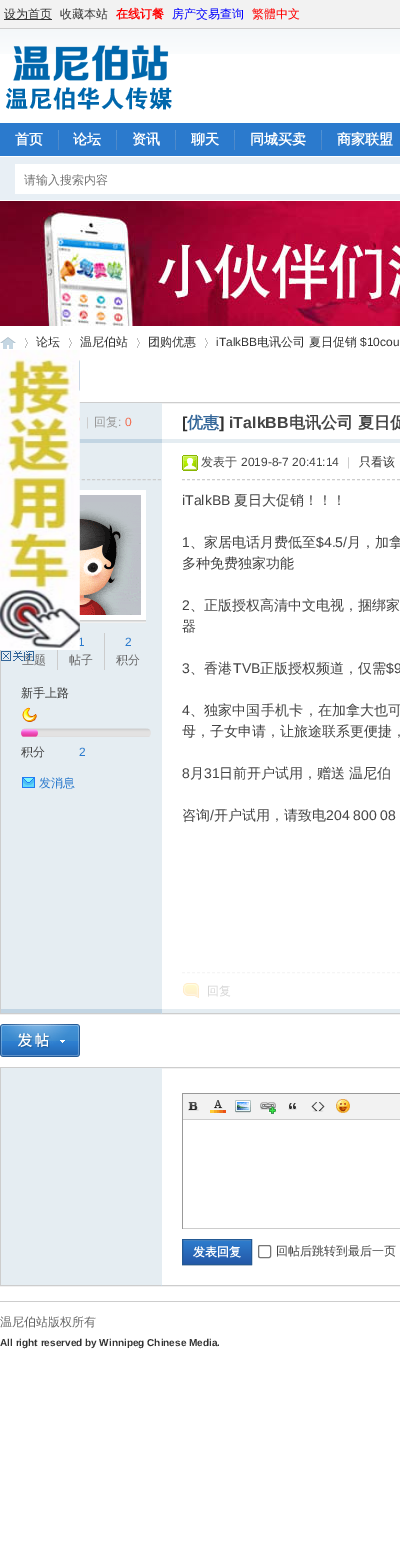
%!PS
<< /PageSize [400 1548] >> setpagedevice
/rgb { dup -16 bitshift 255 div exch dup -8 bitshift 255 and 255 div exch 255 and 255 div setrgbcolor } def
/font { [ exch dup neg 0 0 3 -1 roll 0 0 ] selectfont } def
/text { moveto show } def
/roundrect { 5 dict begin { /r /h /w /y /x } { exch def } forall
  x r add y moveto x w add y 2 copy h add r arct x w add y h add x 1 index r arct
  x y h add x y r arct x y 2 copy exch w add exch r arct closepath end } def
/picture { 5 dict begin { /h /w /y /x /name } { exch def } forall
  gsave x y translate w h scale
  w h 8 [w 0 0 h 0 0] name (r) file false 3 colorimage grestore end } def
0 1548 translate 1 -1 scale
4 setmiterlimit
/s1 { /WenQuanYiZenHei-Medium 12 font 16#333333 rgb } def
/s2 { /WenQuanYiZenHei-Bold 12 font 16#FF0000 rgb } def
/s3 { /WenQuanYiZenHei-Medium 12 font 16#0000FF rgb } def
/s4 { /WenQuanYiZenHei-Medium 12 font 16#FF0000 rgb } def
/s5 { /WenQuanYiZenHei-Bold 14 font 16#FFFFFF rgb } def
/s6 { /WenQuanYiZenHei-Medium 12 font 16#757575 rgb } def
/s7 { /LiberationSans-Regular 12 font 16#333333 rgb } def
/s8 { /LiberationSans-Regular 12 font 16#CCCCCC rgb } def
/s9 { /WenQuanYiZenHei-Medium 12 font 16#999999 rgb } def
/s10 { /LiberationSans-Regular 12 font 16#999999 rgb } def
/s11 { /LiberationSans-Regular 12 font 16#F26C4F rgb } def
/s12 { /LiberationSans-Bold 16 font 16#333333 rgb } def
/s13 { /WenQuanYiZenHei-Bold 16 font 16#336699 rgb } def
/s14 { /LiberationSans-Bold 16 font 16#444444 rgb } def
/s15 { /WenQuanYiZenHei-Bold 16 font 16#444444 rgb } def
/s16 { /WenQuanYiZenHei-Medium 12 font 16#666666 rgb } def
/s17 { /LiberationSans-Regular 12 font 16#2B7ACD rgb } def
/s18 { /WenQuanYiZenHei-Medium 12 font 16#444444 rgb } def
/s19 { /WenQuanYiZenHei-Medium 12 font 16#2B7ACD rgb } def
/s20 { /LiberationSans-Regular 12 font 16#444444 rgb } def
/s21 { /LiberationSans-Regular 14 font 16#444444 rgb } def
/s22 { /WenQuanYiZenHei-Medium 14 font 16#444444 rgb } def
/s23 { /WenQuanYiZenHei-Medium 12 font 16#D6D6D6 rgb } def
/s24 { /WenQuanYiZenHei-Bold 12 font 16#FFFFFF rgb } def
/s25 { /LiberationSans-Bold 10 font 16#333333 rgb } def
16#FFFFFF rgb
0 0 400 1548 rectfill
(pic1.raw) 0 29 400 25 picture
16#F2F2F2 rgb
0 0 400 28 rectfill
16#CDCDCD rgb
0 28 400 1 rectfill
16#333333 rgb
4 19 48 1 rectfill
s1
(设为首页) 4 18 text
(收藏本站) 60 18 text
s2
(在线订餐) 116 18 text
s3
(房产交易查询) 172 18 text
s4
(繁體中文) 252 18 text
(pic2.raw) 6 45 166 65 picture
16#2B7ACD rgb
0 123 400 33 rectfill
(pic3.raw) 58 130 1 20 picture
s5
(首页) 15 144 text
(pic3.raw) 116 130 1 20 picture
(论坛) 73 144 text
(pic3.raw) 175 130 1 20 picture
(资讯) 132 144 text
(pic3.raw) 234 130 1 20 picture
(聊天) 191 144 text
(pic3.raw) 321 130 1 20 picture
(同城买卖) 250 144 text
(商家联盟) 337 144 text
16#E8EFF5 rgb
0 157 400 43 rectfill
16#FFFFFF rgb
15 164 385 30 rectfill
s6
(请输入搜索内容) 24 184 text
(pic4.raw) 0 201 400 125 picture
(pic5.raw) 0 337 16 12 picture
(pic6.raw) 25 338 3 10 picture
s1
(论坛) 36 346 text
(pic6.raw) 69 338 3 10 picture
(温尼伯站) 80 346 text
(pic6.raw) 137 338 3 10 picture
(团购优惠) 148 346 text
(pic6.raw) 205 338 3 10 picture
s7
(iTalkBB) 216 346 text
s1
(电讯公司 夏日促销) 257 346 text
s7
($10cou) 360 346 text
(pic7.raw) 79 360 1 31 picture
16#CDCDCD rgb
0.5 402.5 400 611 rectstroke
16#E5EDF2 rgb
79 403 83 36 rectfill
s8
(|) 86 426 text
s9
(回复) 94 426 text
s10
(:) 118 426 text
s11
(0) 125 426 text
s12
([) 182 428 text
s13
(优惠) 187 428 text
s12
(]) 219 428 text
s14
(iTalkBB) 229 428 text
s15
(电讯公司 夏日促) 289 428 text
16#C2D5E3 rgb
79 439 83 4 rectfill
16#E5EDF2 rgb
162 439 238 4 rectfill
1 443 161 566 rectfill
16#CDCDCD rgb
[3 2.06] 0 setdash
1 479.5 moveto 161 479.5 lineto stroke
16#FFFFFF rgb
79 490 67 130 rectfill
(pic8.raw) 79 495 67 128 picture
16#CCCCCC rgb
57 650 1 20 rectfill
s16
(主题) 22 664 text
16#CCCCCC rgb
104 633 1 37 rectfill
s17
(1) 78 646 text
s16
(帖子) 69 664 text
s17
(2) 125 646 text
s16
(积分) 116 664 text
s1
(新手上路) 21 697 text
(pic9.raw) 22 707 15 15 picture
(pic10.raw) 21 728 130 9 picture
(pic11.raw) 21 729 17 8 picture
s18
(积分) 21 756 text
s17
(2) 79 756 text
(pic12.raw) 22 777 13 11 picture
s19
(发消息) 39 787 text
16#CDCDCD rgb
[3 2] 0 setdash
182 479.5 moveto 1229 479.5 lineto stroke
(pic13.raw) 182 455 16 16 picture
s18
(发表于) 201 466 text
s20
(2019-8-7 20:41:14) 241 466 text
s8
(|) 347 466 text
s1
(只看该) 359 466 text
s21
(iTalkBB) 182 505 text
s22
(夏日大促销！！！) 234 505 text
s21
(1) 182 547 text
s22
(、家居电话月费低至) 190 547 text
s21
($4.5/) 316 547 text
s22
(月，加拿) 347 547 text
(多种免费独家功能) 182 568 text
s21
(2) 182 610 text
s22
(、正版授权高清中文电视，捆绑家) 190 610 text
(器) 182 631 text
s21
(3) 182 673 text
s22
(、香港) 190 673 text
s21
(TVB) 233 673 text
s22
(正版授权频道，仅需) 260 673 text
s21
($9) 386 673 text
(4) 182 715 text
s22
(、独家中国) 190 715 text
(手机卡) 261 715 text
(，在加拿大也可) 304 715 text
(母，子女申请，让旅途联系更便捷，) 182 736 text
s21
(8) 182 778 text
s22
(月) 190 778 text
s21
(31) 204 778 text
s22
(日前开户试用，赠送) 219 778 text
(温尼伯) 349 778 text
(咨询) 182 820 text
s21
(/) 210 820 text
s22
(开户试用，请致电) 214 820 text
s21
(204 800 08) 326 820 text
16#F5F5F5 rgb
182 972.5 moveto 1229 972.5 lineto stroke
(pic14.raw) 183 983 16 15 picture
s23
(回复) 207 995 text
16#C2D5E3 rgb
161 1009 1 5 rectfill
1 1009 161 4 rectfill
16#E5EDF2 rgb
162 1009 238 4 rectfill
(pic15.raw) 0 1024 80 33 picture
16#CDCDCD rgb
[] 0 setdash
0.5 1067.5 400 218 rectstroke
16#C2D5E3 rgb
161 1285 1 1 rectfill
16#E5EDF2 rgb
1 1068 161 217 rectfill
16#999999 rgb
182 1093 218 1 rectfill
16#CCCCCC rgb
182 1228 218 1 rectfill
16#999999 rgb
182 1093 1 136 rectfill
16#F2F2F2 rgb
183 1094 217 25 rectfill
16#CDCDCD rgb
183 1119 217 1 rectfill
(pic16.raw) 188 1102 11 9 picture
(pic17.raw) 210 1100 16 13 picture
(pic18.raw) 235 1100 16 13 picture
(pic19.raw) 260 1102 17 12 picture
(pic20.raw) 288 1103 9 7 picture
(pic21.raw) 311 1102 14 10 picture
(pic22.raw) 335 1099 15 14 picture
16#E5E5E5 rgb
182 1265 70 1 rectfill
(pic23.raw) 183 1240 68 24 picture
16#235994 rgb
182.5 1239.5 69 25 rectstroke
s24
(发表回复) 193 1256 text
16#767676 rgb
258.5 1245.5 12 12 1.5 roundrect stroke
s18
(回帖后跳转到最后一页) 276 1255 text
(pic24.raw) 0 350 80 300 picture
(pic25.raw) 1 651 33 10 picture
16#CDCDCD rgb
0 1301 400 1 rectfill
s16
(温尼伯站版权所有) 0 1326 text
s25
(All right reserved by Winnipeg Chinese Media.) 0 1346 text
showpage
